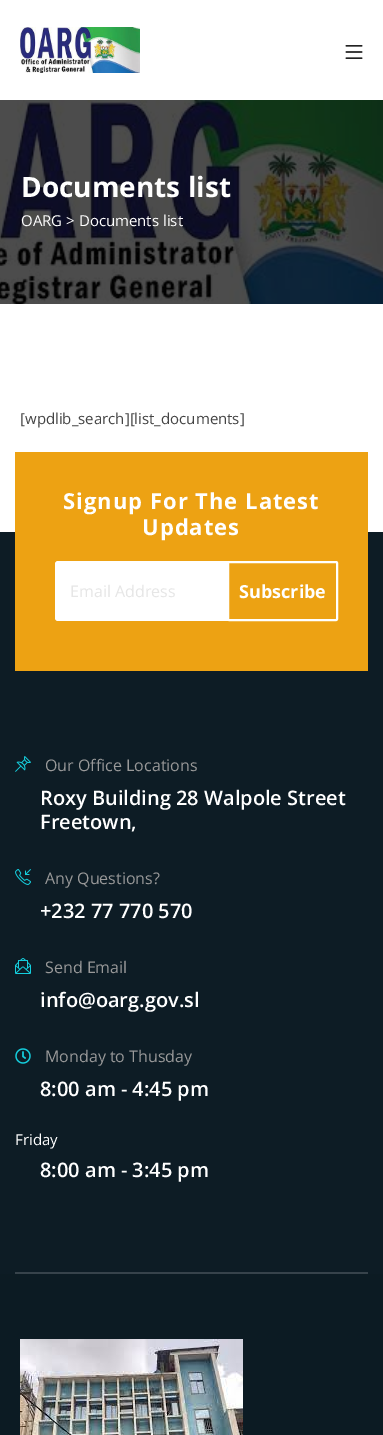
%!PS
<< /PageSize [383 1435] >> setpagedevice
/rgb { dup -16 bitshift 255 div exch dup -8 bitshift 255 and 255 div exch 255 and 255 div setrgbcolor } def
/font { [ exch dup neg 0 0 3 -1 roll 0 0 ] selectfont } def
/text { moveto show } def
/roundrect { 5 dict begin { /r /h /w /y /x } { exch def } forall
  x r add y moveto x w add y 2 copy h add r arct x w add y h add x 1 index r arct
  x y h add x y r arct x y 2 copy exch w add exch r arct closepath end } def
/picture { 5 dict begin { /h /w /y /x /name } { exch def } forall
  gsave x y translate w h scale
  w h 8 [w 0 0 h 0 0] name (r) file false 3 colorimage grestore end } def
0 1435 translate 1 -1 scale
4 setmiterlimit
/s1 { /OpenSans-Bold 28 font 16#FFFFFF rgb } def
/s2 { /OpenSans-Regular 15 font 16#FFFFFF rgb } def
/s3 { /OpenSans-Regular 15 font 16#444444 rgb } def
/s4 { /OpenSans-Regular 16 font 16#E6E6E6 rgb } def
/s5 { /OpenSans-Bold 18 font 16#FFFFFF rgb } def
/s6 { /OpenSans-Regular 16 font 16#999999 rgb } def
/s7 { /OpenSans-SemiBold 20 font 16#FFFFFF rgb } def
16#FFFFFF rgb
0 0 383 1435 rectfill
(pic1.raw) 20 27 120 46 picture
(pic2.raw) 345 45 18 14 picture
(pic3.raw) 0 100 383 204 picture
s1
(Documents list) 21 197 text
s2
(OARG > Documents list) 21 226 text
s3
([wpdlib_search][list_documents]) 20 424 text
16#0D1C25 rgb
0 532 383 742 rectfill
16#EDA213 rgb
15 452 353 219 rectfill
/OpenSans-Bold 22 font
16#FFFFFF rgb
63 509 moveto 1 0 (Signup For The Latest) ashow
142 535 moveto 1 0 (Updates) ashow
55 561 273 60 3 roundrect fill
s4
(Email Address) 70 597 text
16#ECA213 rgb
228 562 109 58 1 roundrect gsave fill grestore
16#FFFFFF rgb
2 setlinewidth
stroke
s5
(Subscribe) 239 598 text
(pic4.raw) 15 756 16 16 picture
s6
(Our Office Locations) 45 771 text
s7
(Roxy Building 28 Walpole Street) 40 805 text
(Freetown,) 40 829 text
(pic5.raw) 15 869 16 16 picture
s6
(Any Questions?) 45 884 text
s7
(+232 77 770 570) 40 918 text
(pic6.raw) 15 958 16 16 picture
s6
(Send Email) 45 973 text
s7
(info@oarg.gov.sl) 40 1007 text
(pic7.raw) 15 1048 16 16 picture
s6
(Monday to Thusday) 45 1062 text
s7
(8:00 am - 4:45 pm) 40 1096 text
s2
(Friday) 15 1145 text
s7
(8:00 am - 3:45 pm) 40 1177 text
16#37434B rgb
15 1272 353 2 rectfill
16#0C1B23 rgb
0 1274 383 161 rectfill
(pic8.raw) 20 1339 223 96 picture
showpage
